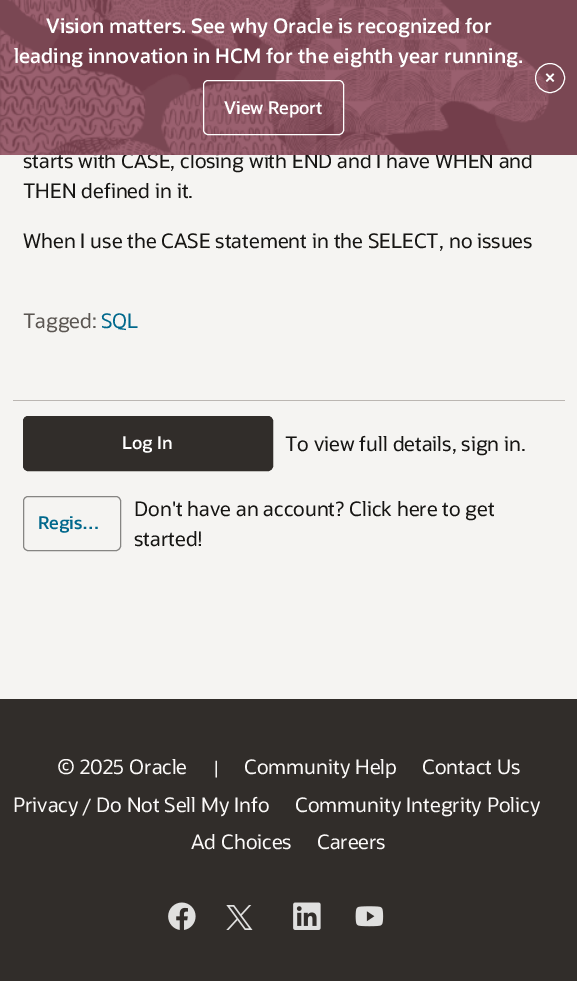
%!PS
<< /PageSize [577 981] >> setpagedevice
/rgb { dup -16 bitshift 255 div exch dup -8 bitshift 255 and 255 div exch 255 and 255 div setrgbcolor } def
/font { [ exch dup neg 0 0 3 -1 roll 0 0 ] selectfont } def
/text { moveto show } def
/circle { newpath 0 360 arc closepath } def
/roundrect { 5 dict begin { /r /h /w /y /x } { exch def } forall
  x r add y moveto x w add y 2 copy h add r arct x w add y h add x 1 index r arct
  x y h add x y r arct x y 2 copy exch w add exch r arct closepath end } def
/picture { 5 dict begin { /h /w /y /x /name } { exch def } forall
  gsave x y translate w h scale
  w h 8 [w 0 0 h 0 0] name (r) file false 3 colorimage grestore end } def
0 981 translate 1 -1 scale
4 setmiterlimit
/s1 { /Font-Regular 20 font 16#161513 rgb } def
/s2 { /Font-SemiBold 20 font 16#FFFFFF rgb } def
/s3 { /Font-SemiBold 17.5 font 16#FFFFFF rgb } def
/s4 { /Font-Regular 20 font 16#5B5652 rgb } def
/s5 { /Font-Regular 20 font 16#00688C rgb } def
/s6 { /Font-SemiBold 17.5 font 16#00688C rgb } def
/s7 { /Font-Regular 20 font 16#FBF9F8 rgb } def
/s8 { /Font-Regular 17.5 font 16#F5F4F2 rgb } def
16#F5F4F2 rgb
0 0 577 981 rectfill
16#7A4753 rgb
549 0 28 155 rectfill
s1
(starts with CASE, closing with END and I have WHEN and) 23 168 text
(pic1.raw) 0 0 549 155 picture
s2
(Vision matters. See why Oracle is recognized for) 46 33 text
(leading innovation in HCM for the eighth year running.) 14 63 text
550 78 14.5 circle stroke
(×) 544 85 text
203.5 80.5 140 54 4.5 roundrect stroke
s3
(View Report) 224 114 text
s1
(THEN defined in it.) 23 198 text
(When I use the CASE statement in the SELECT, no issues) 23 248 text
s4
(Tagged:) 23 328 text
s5
(SQL) 101 328 text
16#BBB6B2 rgb
13 400 552 1 rectfill
16#312D2A rgb
23.5 416.5 249 54 4.5 roundrect gsave fill grestore
stroke
s3
(Log In) 122 449 text
s1
(To view full details, sign in.) 285 451 text
16#868583 rgb
23.5 496.5 97 54 4.5 roundrect stroke
s6
(Regis…) 38 529 text
s1
(Don't have an account? Click here to get) 134 516 text
(started!) 134 546 text
16#312D2A rgb
0 699 577 282 rectfill
s7
(© 2025 Oracle) 57 774 text
s8
(|) 213 774 text
s7
(Community Help) 244 774 text
(Contact Us) 422 774 text
(Privacy) 13 812 text
s8
(/) 82 812 text
s7
(Do Not Sell My Info) 96 812 text
(Community Integrity Policy) 295 812 text
(Ad Choices) 191 849 text
(Careers) 317 849 text
(pic2.raw) 168 902 28 28 picture
(pic3.raw) 226 905 27 25 picture
(pic4.raw) 293 902 28 28 picture
(pic5.raw) 355 906 29 21 picture
showpage
